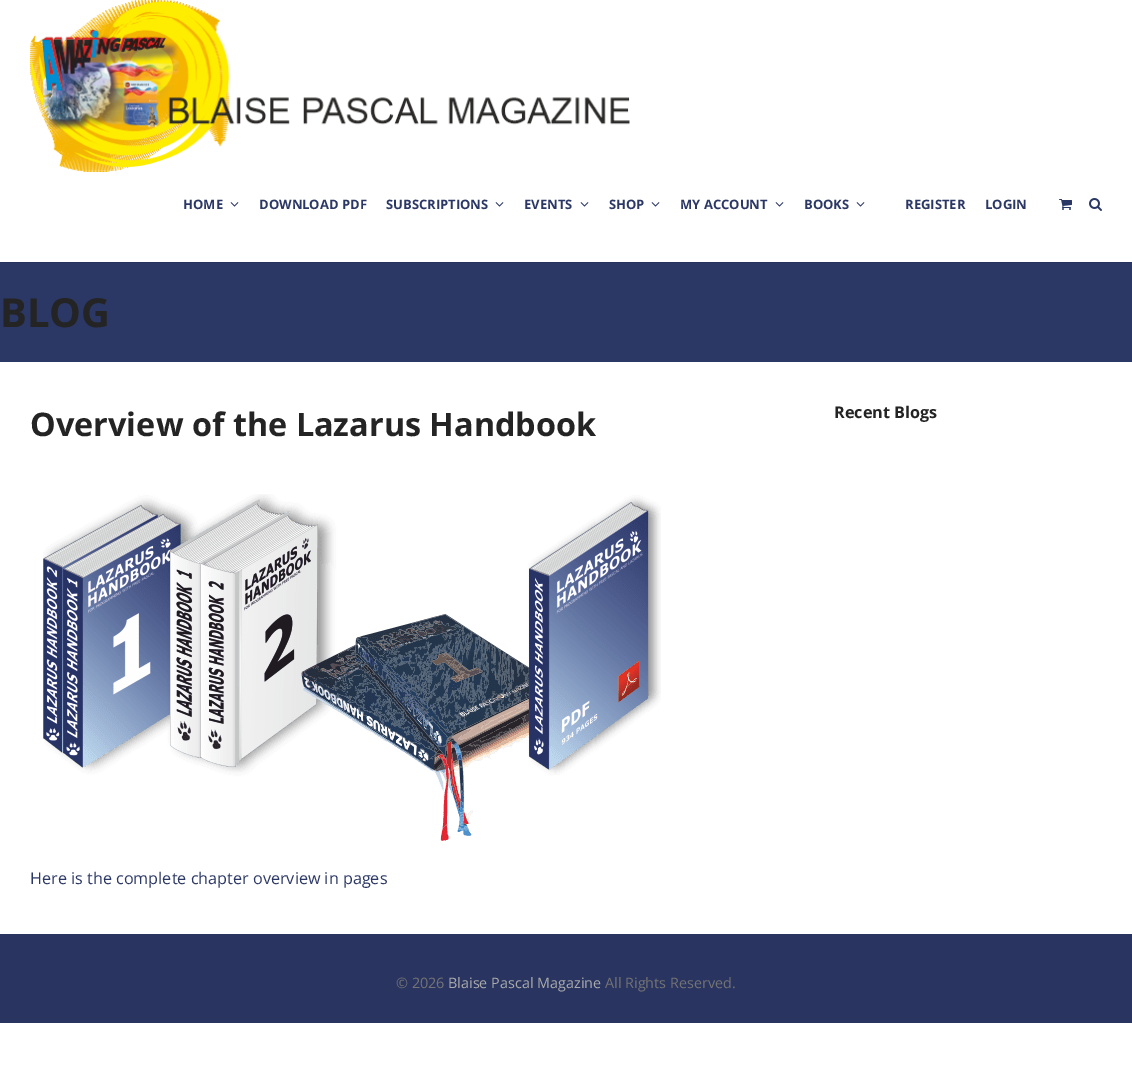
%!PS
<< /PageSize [1132 1091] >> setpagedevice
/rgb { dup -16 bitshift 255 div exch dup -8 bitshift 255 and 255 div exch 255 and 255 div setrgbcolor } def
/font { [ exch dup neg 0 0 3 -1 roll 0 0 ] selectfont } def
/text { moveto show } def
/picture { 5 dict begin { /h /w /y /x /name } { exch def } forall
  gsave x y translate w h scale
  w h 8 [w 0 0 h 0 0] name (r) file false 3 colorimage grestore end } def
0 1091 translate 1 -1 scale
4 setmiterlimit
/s1 { /OpenSans-Bold 13 font 16#2B3865 rgb } def
/s2 { /OpenSans-Bold 40 font 16#242424 rgb } def
/s3 { /OpenSans-Bold 32.4 font 16#242424 rgb } def
/s4 { /OpenSans-Regular 16.2 font 16#2B3865 rgb } def
/s5 { /OpenSans-Bold 16.2 font 16#242424 rgb } def
/s6 { /OpenSans-Regular 14.4 font 16#747475 rgb } def
/s7 { /OpenSans-Regular 14.4 font 16#ABABAC rgb } def
16#FFFFFF rgb
0 0 1132 1091 rectfill
16#27325B rgb
0 262 1132 1 rectfill
(pic1.raw) 30 0 600 172 picture
s1
(HOME) 183 209 text
(pic2.raw) 230 202 9 5 picture
(DOWNLOAD PDF) 259 209 text
(SUBSCRIPTIONS) 386 209 text
(pic2.raw) 495 202 9 5 picture
(EVENTS) 524 209 text
(pic2.raw) 580 202 9 5 picture
(SHOP) 609 209 text
(pic2.raw) 651 202 9 5 picture
(MY ACCOUNT) 680 209 text
(pic2.raw) 775 202 9 5 picture
(BOOKS) 804 209 text
(pic2.raw) 856 202 9 5 picture
(REGISTER) 905 209 text
(LOGIN) 985 209 text
(pic3.raw) 1059 199 13 11 picture
(pic4.raw) 1089 198 13 13 picture
0 263 1132 99 rectfill
s2
(BLOG) 0 327 text
s3
(Overview of the Lazarus Handbook) 30 436 text
(pic5.raw) 43 494 618 347 picture
s4
(Here is the complete chapter overview in pages) 30 884 text
s5
(Recent Blogs) 834 418 text
16#293560 rgb
0 934 1132 89 rectfill
s6
(© 2026) 396 988 text
s7
(Blaise Pascal Magazine) 448 988 text
s6
(All Rights Reserved.) 605 988 text
showpage
